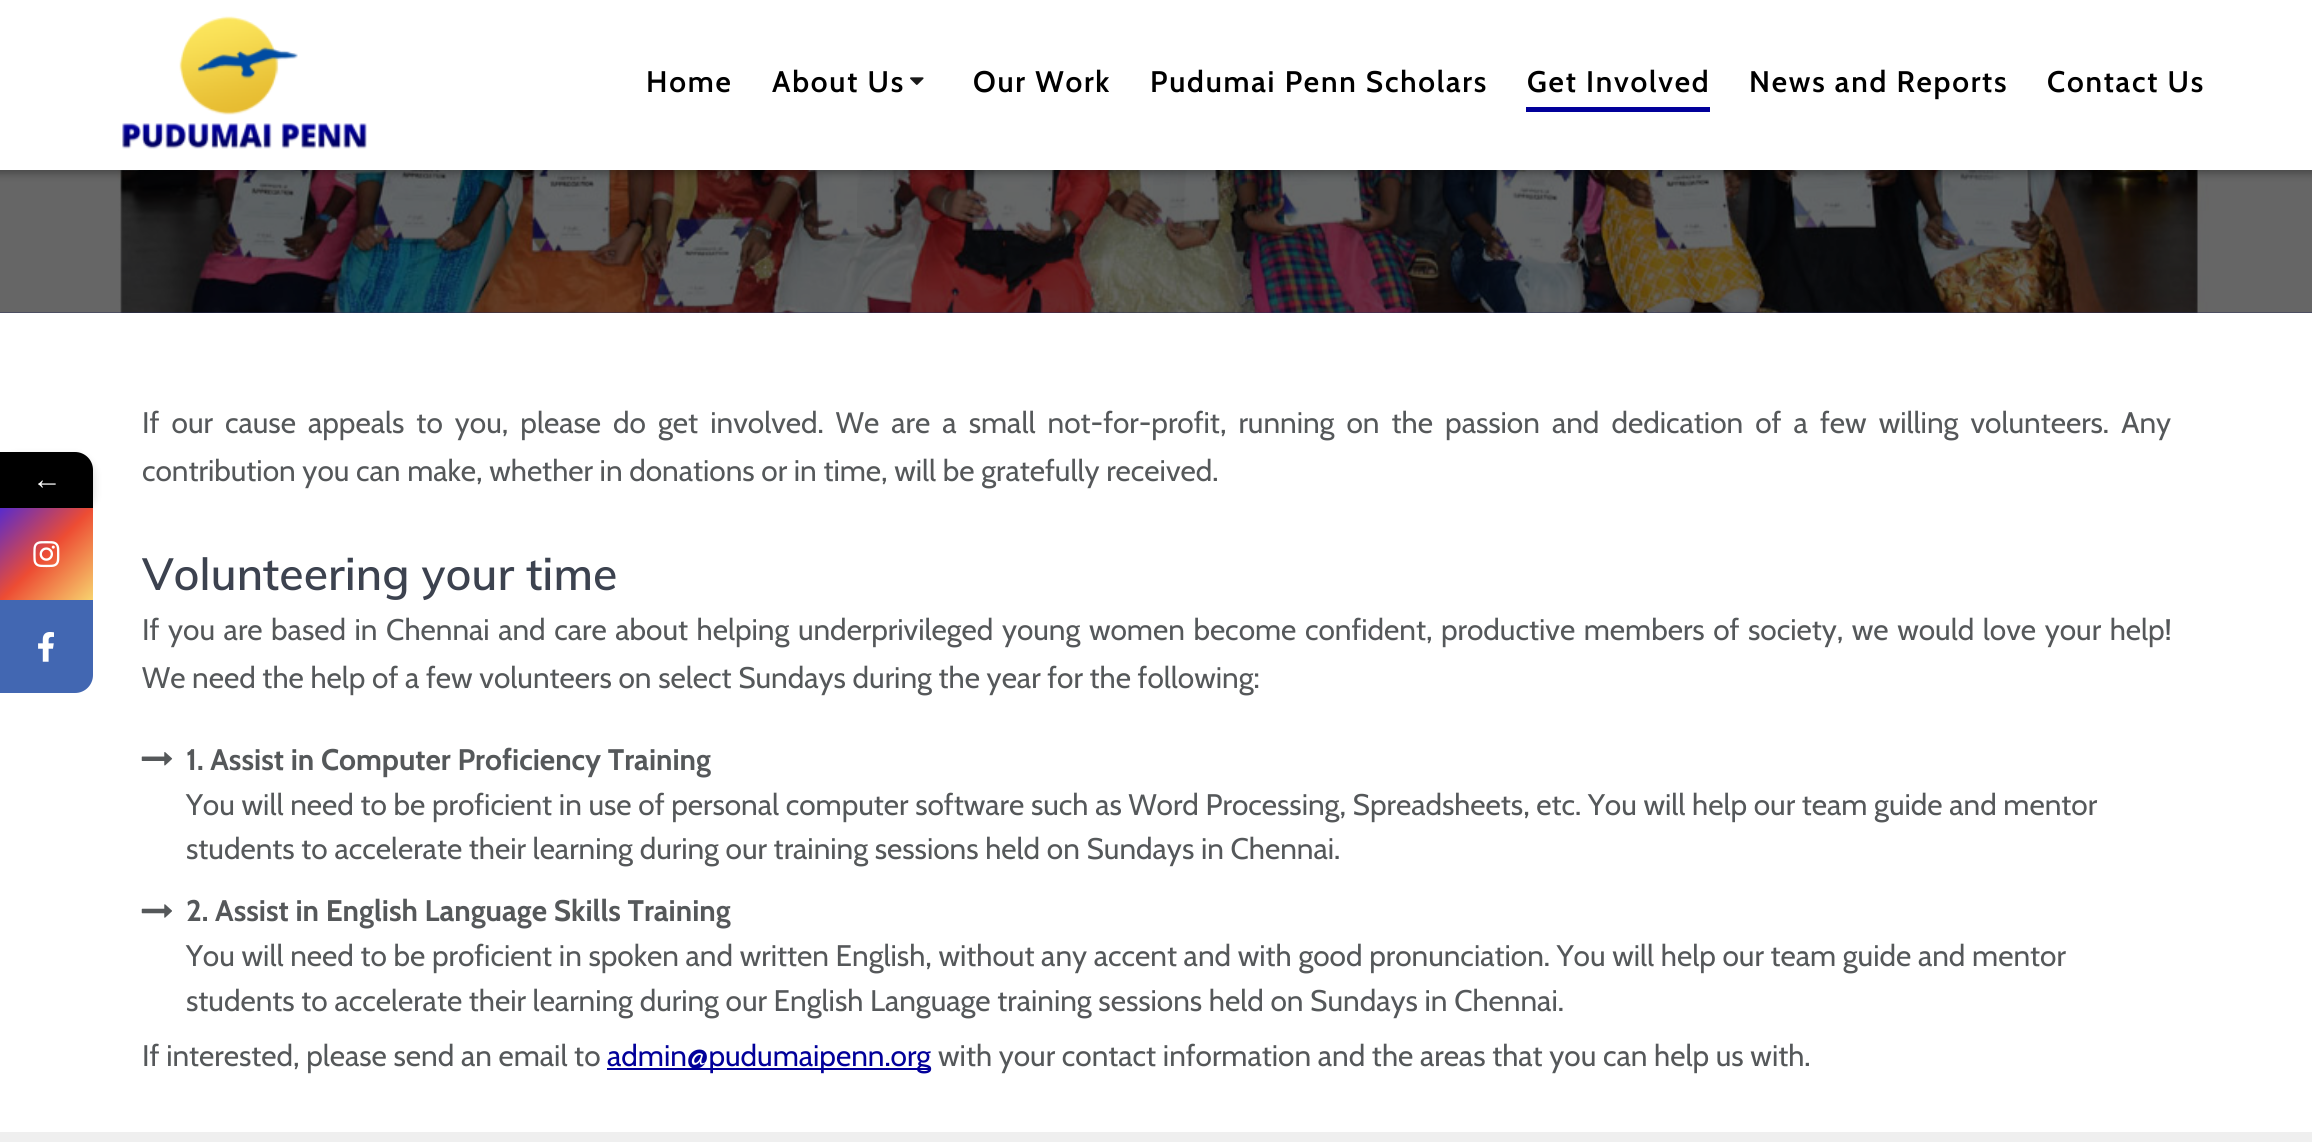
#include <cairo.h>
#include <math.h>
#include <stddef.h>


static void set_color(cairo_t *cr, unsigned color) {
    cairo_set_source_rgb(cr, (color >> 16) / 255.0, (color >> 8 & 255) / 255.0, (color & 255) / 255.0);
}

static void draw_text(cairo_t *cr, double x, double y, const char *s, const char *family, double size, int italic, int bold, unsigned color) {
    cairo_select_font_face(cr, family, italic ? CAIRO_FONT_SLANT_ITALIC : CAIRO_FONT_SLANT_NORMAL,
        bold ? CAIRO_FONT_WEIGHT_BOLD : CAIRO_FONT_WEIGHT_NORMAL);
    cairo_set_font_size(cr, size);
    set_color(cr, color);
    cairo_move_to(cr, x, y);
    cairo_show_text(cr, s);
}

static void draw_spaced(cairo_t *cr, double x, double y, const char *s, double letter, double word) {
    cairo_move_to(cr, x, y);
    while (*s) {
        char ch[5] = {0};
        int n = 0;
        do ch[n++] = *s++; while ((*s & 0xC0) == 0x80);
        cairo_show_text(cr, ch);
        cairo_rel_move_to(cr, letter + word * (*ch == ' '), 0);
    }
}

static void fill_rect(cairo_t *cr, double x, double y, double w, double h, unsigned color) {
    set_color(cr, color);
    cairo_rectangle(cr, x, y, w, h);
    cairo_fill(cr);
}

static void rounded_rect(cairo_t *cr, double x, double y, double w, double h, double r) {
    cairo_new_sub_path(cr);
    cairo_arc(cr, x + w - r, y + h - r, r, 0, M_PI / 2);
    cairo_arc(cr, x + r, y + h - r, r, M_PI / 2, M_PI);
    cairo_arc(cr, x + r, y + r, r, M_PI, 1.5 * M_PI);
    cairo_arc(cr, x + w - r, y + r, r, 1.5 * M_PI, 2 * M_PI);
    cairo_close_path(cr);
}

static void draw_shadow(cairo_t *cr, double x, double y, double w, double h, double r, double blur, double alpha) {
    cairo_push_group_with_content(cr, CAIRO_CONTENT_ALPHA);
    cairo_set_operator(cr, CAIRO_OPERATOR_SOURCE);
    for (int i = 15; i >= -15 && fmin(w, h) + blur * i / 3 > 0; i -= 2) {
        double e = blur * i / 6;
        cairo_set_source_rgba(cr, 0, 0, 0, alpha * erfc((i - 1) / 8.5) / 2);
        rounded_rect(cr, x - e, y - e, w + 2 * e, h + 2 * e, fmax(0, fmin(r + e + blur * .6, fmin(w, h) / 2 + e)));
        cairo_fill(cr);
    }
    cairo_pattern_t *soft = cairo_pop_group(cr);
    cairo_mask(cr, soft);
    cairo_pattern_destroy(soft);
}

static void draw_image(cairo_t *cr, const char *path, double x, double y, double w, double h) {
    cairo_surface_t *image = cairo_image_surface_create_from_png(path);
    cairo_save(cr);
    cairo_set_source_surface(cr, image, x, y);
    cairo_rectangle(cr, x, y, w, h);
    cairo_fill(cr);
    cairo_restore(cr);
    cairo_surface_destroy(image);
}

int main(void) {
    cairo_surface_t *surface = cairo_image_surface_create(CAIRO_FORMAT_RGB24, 2312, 1142);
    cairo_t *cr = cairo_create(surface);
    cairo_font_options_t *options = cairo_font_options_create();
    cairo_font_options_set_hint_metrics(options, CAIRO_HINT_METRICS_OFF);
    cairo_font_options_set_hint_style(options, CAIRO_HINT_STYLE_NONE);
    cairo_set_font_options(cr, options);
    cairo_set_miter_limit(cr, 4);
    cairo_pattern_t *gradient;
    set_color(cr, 0xFFFFFF);
    cairo_paint(cr);
    fill_rect(cr, 0, 312, 2312, 1, 0x2A2E57);
    draw_image(cr, "assets/img5.png", 0, 170, 2312, 143);
    draw_image(cr, "assets/img6.png", 857, 170, 330, 58);
    set_color(cr, 0x000000);
    draw_shadow(cr, -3, -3, 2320, 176, 0, 4.5, 0.33);
    fill_rect(cr, 0, 0, 2312, 170, 0xFFFFFF);
    draw_image(cr, "assets/img1.png", 122, 16, 245, 133);
    cairo_select_font_face(cr, "Cabin SemiBold", CAIRO_FONT_SLANT_NORMAL, CAIRO_FONT_WEIGHT_NORMAL);
    cairo_set_font_size(cr, 29.75);
    set_color(cr, 0x000000);
    draw_spaced(cr, 646, 92, "Home", 1.75, 0);
    draw_spaced(cr, 772, 92, "About Us", 1.75, 0);
    draw_image(cr, "assets/img2.png", 910, 77, 14, 8);
    draw_spaced(cr, 973, 92, "Our Work", 1.75, 0);
    draw_spaced(cr, 1150, 92, "Pudumai Penn Scholars", 1.75, 0);
    fill_rect(cr, 1526, 107, 184, 5, 0x01009A);
    set_color(cr, 0x000000);
    draw_spaced(cr, 1527, 92, "Get Involved", 1.75, 0);
    draw_spaced(cr, 1749, 92, "News and Reports", 1.75, 0);
    draw_spaced(cr, 2047, 92, "Contact Us", 1.75, 0);
    set_color(cr, 0x000000);
    draw_shadow(cr, 0, 457, 93, 56, 18, 5, 0.16);
    set_color(cr, 0x000000);
    cairo_new_path(cr);
    cairo_move_to(cr, 0, 452);
    cairo_line_to(cr, 75, 452);
    cairo_curve_to(cr, 85, 452, 93, 460, 93, 470);
    cairo_line_to(cr, 93, 508);
    cairo_line_to(cr, 0, 508);
    cairo_close_path(cr);
    cairo_fill(cr);
    draw_text(cr, 32, 489, "←", "Liberation Serif", 29.75, 0, 0, 0xFFFFFF);
    gradient = cairo_pattern_create_linear(0, 508, 93, 600);
    cairo_pattern_add_color_stop_rgba(gradient, 0, 0.345, 0.169, 0.804, 1);
    cairo_pattern_add_color_stop_rgba(gradient, 0.5, 0.929, 0.298, 0.2, 1);
    cairo_pattern_add_color_stop_rgba(gradient, 1, 0.969, 0.827, 0.435, 1);
    cairo_set_source(cr, gradient);
    cairo_pattern_destroy(gradient);
    cairo_rectangle(cr, 0, 508, 93, 92);
    cairo_fill(cr);
    draw_image(cr, "assets/img3.png", 33, 541, 27, 27);
    set_color(cr, 0x4267B2);
    cairo_new_path(cr);
    cairo_move_to(cr, 0, 600);
    cairo_line_to(cr, 93, 600);
    cairo_line_to(cr, 93, 675);
    cairo_curve_to(cr, 93, 685, 85, 693, 75, 693);
    cairo_line_to(cr, 0, 693);
    cairo_close_path(cr);
    cairo_fill(cr);
    draw_image(cr, "assets/img4.png", 38, 632, 16, 30);
    cairo_select_font_face(cr, "Cabin", CAIRO_FONT_SLANT_NORMAL, CAIRO_FONT_WEIGHT_NORMAL);
    set_color(cr, 0x55585A);
    draw_spaced(cr, 142, 433, "If our cause appeals to you, please do get involved. We are a small not-for-profit, running on the passion and dedication of a few willing volunteers. Any", 0, 5.4);
    draw_text(cr, 142, 481, "contribution you can make, whether in donations or in time, will be gratefully received.", "Cabin", 29.75, 0, 0, 0x55585A);
    draw_text(cr, 142, 590, "Volunteering your time", "Muli SemiBold", 44.6, 0, 0, 0x3C424F);
    cairo_select_font_face(cr, "Cabin", CAIRO_FONT_SLANT_NORMAL, CAIRO_FONT_WEIGHT_NORMAL);
    cairo_set_font_size(cr, 29.75);
    set_color(cr, 0x55585A);
    draw_spaced(cr, 142, 640, "If you are based in Chennai and care about helping underprivileged young women become confident, productive members of society, we would love your help!", 0, 1.9);
    draw_text(cr, 142, 688, "We need the help of a few volunteers on select Sundays during the year for the following:", "Cabin", 29.75, 0, 0, 0x55585A);
    draw_image(cr, "assets/img7.png", 141, 752, 32, 14);
    draw_text(cr, 186, 770, "1. Assist in Computer Proficiency Training", "Cabin", 29.75, 0, 1, 0x55585A);
    draw_text(cr, 186, 815, "You will need to be proficient in use of personal computer software such as Word Processing, Spreadsheets, etc. You will help our team guide and mentor", "Cabin", 29.75, 0, 0, 0x55585A);
    draw_text(cr, 186, 859, "students to accelerate their learning during our training sessions held on Sundays in Chennai.", "Cabin", 29.75, 0, 0, 0x55585A);
    draw_image(cr, "assets/img8.png", 141, 904, 31, 14);
    draw_text(cr, 186, 921, "2. Assist in English Language Skills Training", "Cabin", 29.75, 0, 1, 0x55585A);
    draw_text(cr, 186, 966, "You will need to be proficient in spoken and written English, without any accent and with good pronunciation. You will help our team guide and mentor", "Cabin", 29.75, 0, 0, 0x55585A);
    draw_text(cr, 186, 1011, "students to accelerate their learning during our English Language training sessions held on Sundays in Chennai.", "Cabin", 29.75, 0, 0, 0x55585A);
    draw_text(cr, 142, 1066, "If interested, please send an email to", "Cabin", 29.75, 0, 0, 0x55585A);
    fill_rect(cr, 607, 1068, 324, 2, 0x01009A);
    draw_text(cr, 607, 1066, "admin@pudumaipenn.org", "Cabin", 29.75, 0, 0, 0x01009A);
    draw_text(cr, 938, 1066, "with your contact information and the areas that you can help us with.", "Cabin", 29.75, 0, 0, 0x55585A);
    fill_rect(cr, 0, 1132, 2312, 10, 0xEFEFEF);
    cairo_surface_write_to_png(surface, "output.png");
    cairo_font_options_destroy(options);
    cairo_destroy(cr);
    cairo_surface_destroy(surface);
    return 0;
}
